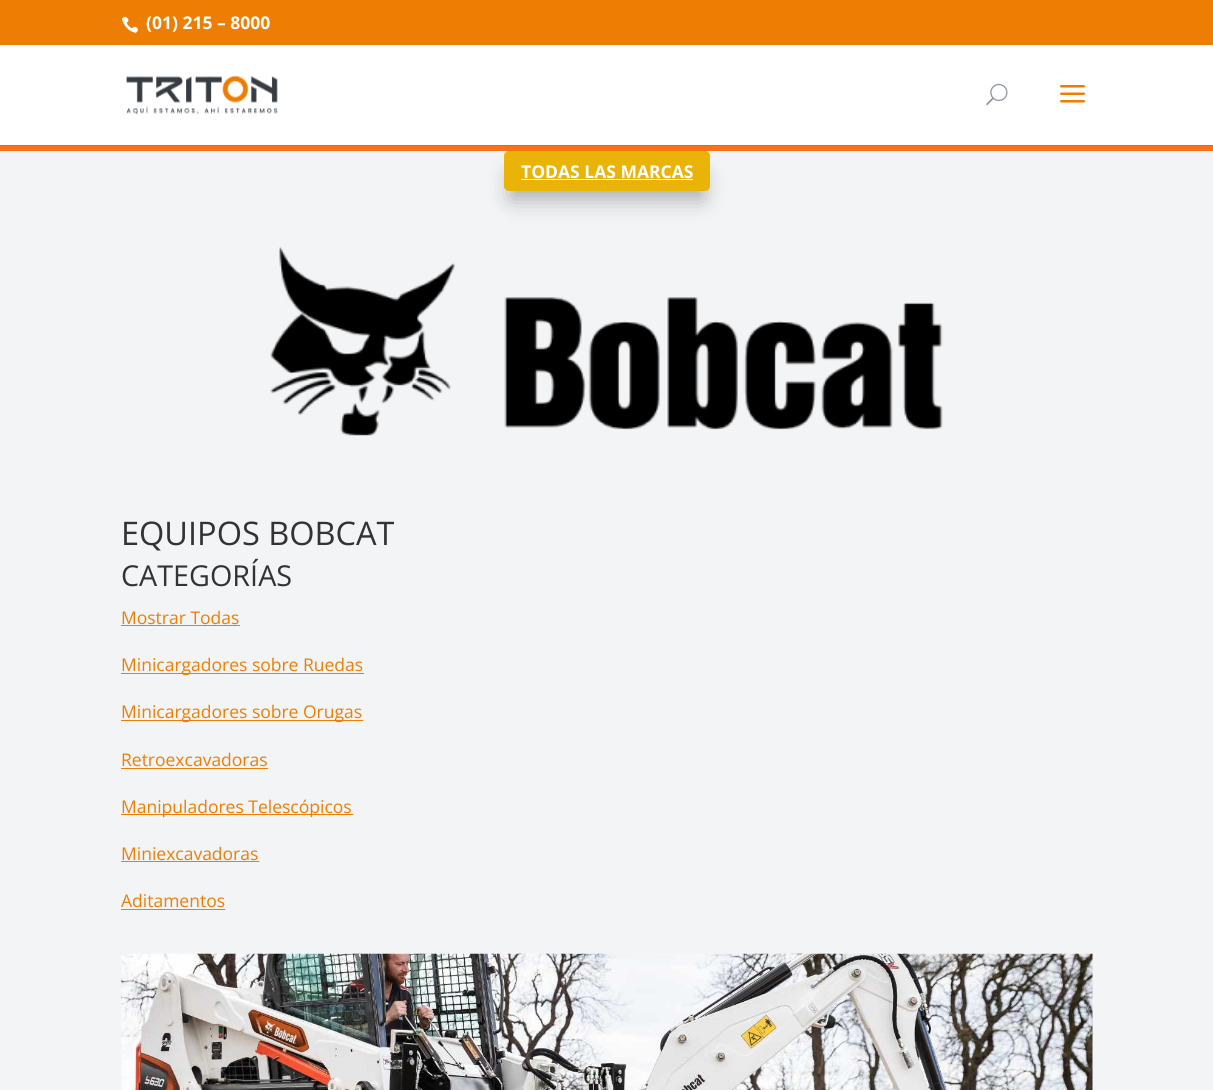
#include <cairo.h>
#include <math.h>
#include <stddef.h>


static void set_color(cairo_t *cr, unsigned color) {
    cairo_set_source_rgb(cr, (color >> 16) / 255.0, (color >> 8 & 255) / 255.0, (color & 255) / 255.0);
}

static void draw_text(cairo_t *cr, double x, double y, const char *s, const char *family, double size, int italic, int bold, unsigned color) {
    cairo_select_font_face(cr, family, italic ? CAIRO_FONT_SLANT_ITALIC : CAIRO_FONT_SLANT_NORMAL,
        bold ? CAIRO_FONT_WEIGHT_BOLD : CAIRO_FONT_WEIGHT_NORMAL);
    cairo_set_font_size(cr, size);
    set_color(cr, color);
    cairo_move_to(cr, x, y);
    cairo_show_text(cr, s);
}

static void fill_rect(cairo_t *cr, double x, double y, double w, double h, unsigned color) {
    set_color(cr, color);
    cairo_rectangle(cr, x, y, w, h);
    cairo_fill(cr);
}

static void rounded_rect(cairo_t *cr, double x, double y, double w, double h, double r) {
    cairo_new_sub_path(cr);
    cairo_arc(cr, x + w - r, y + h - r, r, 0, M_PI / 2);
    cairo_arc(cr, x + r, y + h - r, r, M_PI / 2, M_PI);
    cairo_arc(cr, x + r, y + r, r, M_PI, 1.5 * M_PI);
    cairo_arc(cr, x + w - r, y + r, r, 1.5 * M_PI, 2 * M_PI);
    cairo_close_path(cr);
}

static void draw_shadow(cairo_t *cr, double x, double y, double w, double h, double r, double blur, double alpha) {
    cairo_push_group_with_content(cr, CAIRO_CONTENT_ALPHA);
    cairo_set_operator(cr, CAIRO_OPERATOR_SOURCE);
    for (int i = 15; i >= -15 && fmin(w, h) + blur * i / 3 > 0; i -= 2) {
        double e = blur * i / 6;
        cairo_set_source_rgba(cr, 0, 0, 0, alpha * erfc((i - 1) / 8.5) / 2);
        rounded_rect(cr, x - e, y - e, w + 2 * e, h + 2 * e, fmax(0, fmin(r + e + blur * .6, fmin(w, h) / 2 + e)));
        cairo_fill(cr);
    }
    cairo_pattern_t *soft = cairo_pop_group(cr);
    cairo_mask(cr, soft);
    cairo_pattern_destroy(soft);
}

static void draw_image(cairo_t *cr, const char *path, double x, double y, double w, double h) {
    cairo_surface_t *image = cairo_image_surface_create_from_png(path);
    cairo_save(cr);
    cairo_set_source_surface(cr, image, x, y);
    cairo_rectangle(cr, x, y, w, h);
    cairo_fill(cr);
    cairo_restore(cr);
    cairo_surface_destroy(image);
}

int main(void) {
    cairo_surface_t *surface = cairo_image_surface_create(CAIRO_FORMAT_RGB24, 1213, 1090);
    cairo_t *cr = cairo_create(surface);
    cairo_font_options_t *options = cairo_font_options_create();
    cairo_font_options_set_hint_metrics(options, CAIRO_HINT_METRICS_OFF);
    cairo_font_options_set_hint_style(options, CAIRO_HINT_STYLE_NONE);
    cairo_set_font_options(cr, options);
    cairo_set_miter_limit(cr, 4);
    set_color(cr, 0xF3F4F6);
    cairo_paint(cr);
    fill_rect(cr, 0, 0, 1213, 45, 0xED7E03);
    draw_image(cr, "assets/img1.png", 122, 16, 16, 17);
    draw_text(cr, 146, 29, "(01) 215 – 8000", "Open Sans", 17.5, 0, 1, 0xFFFFFF);
    fill_rect(cr, 0, 146, 1213, 5, 0xF97316);
    set_color(cr, 0x000000);
    draw_shadow(cr, 511, 174, 192, 25, 0, 11, 0.3);
    set_color(cr, 0xE06714);
    cairo_new_path(cr);
    cairo_move_to(cr, 0, 145);
    cairo_line_to(cr, 0, 146);
    cairo_line_to(cr, 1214, 146);
    cairo_line_to(cr, 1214, 46);
    cairo_line_to(cr, 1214, 145);
    cairo_close_path(cr);
    cairo_fill(cr);
    fill_rect(cr, 0, 45, 1213, 100, 0xFFFFFF);
    draw_image(cr, "assets/img2.png", 126, 75, 152, 40);
    draw_image(cr, "assets/img3.png", 986, 83, 22, 23);
    draw_image(cr, "assets/img4.png", 1060, 85, 25, 18);
    set_color(cr, 0xEAB308);
    rounded_rect(cr, 504, 151, 206, 40, 5);
    cairo_fill(cr);
    draw_text(cr, 521, 178, "TODAS LAS MARCAS", "Open Sans", 17.5, 0, 1, 0xFFFFFF);
    fill_rect(cr, 521, 179, 172, 1, 0xFFFFFF);
    draw_image(cr, "assets/img5.png", 270, 247, 673, 189);
    draw_text(cr, 121, 545, "EQUIPOS BOBCAT", "Open Sans", 32.5, 0, 0, 0x333333);
    draw_text(cr, 121, 586, "CATEGORÍAS", "Open Sans", 28.75, 0, 0, 0x333333);
    draw_text(cr, 121, 624, "Mostrar Todas", "Open Sans", 17.5, 0, 0, 0xED7E03);
    fill_rect(cr, 121, 625, 119, 1, 0xED7E03);
    fill_rect(cr, 121, 673, 243, 1, 0xED7E03);
    draw_text(cr, 121, 671, "Minicargadores sobre Ruedas", "Open Sans", 17.5, 0, 0, 0xED7E03);
    fill_rect(cr, 121, 720, 242, 1, 0xED7E03);
    draw_text(cr, 121, 718, "Minicargadores sobre Orugas", "Open Sans", 17.5, 0, 0, 0xED7E03);
    draw_text(cr, 121, 766, "Retroexcavadoras", "Open Sans", 17.5, 0, 0, 0xED7E03);
    fill_rect(cr, 121, 768, 147, 1, 0xED7E03);
    fill_rect(cr, 121, 814, 232, 1, 0xED7E03);
    draw_text(cr, 121, 813, "Manipuladores Telescópicos", "Open Sans", 17.5, 0, 0, 0xED7E03);
    draw_text(cr, 121, 860, "Miniexcavadoras", "Open Sans", 17.5, 0, 0, 0xED7E03);
    fill_rect(cr, 121, 861, 138, 1, 0xED7E03);
    draw_text(cr, 121, 907, "Aditamentos", "Open Sans", 17.5, 0, 0, 0xED7E03);
    fill_rect(cr, 121, 909, 104, 1, 0xED7E03);
    draw_image(cr, "assets/img6.png", 121, 953, 972, 137);
    cairo_surface_write_to_png(surface, "output.png");
    cairo_font_options_destroy(options);
    cairo_destroy(cr);
    cairo_surface_destroy(surface);
    return 0;
}
